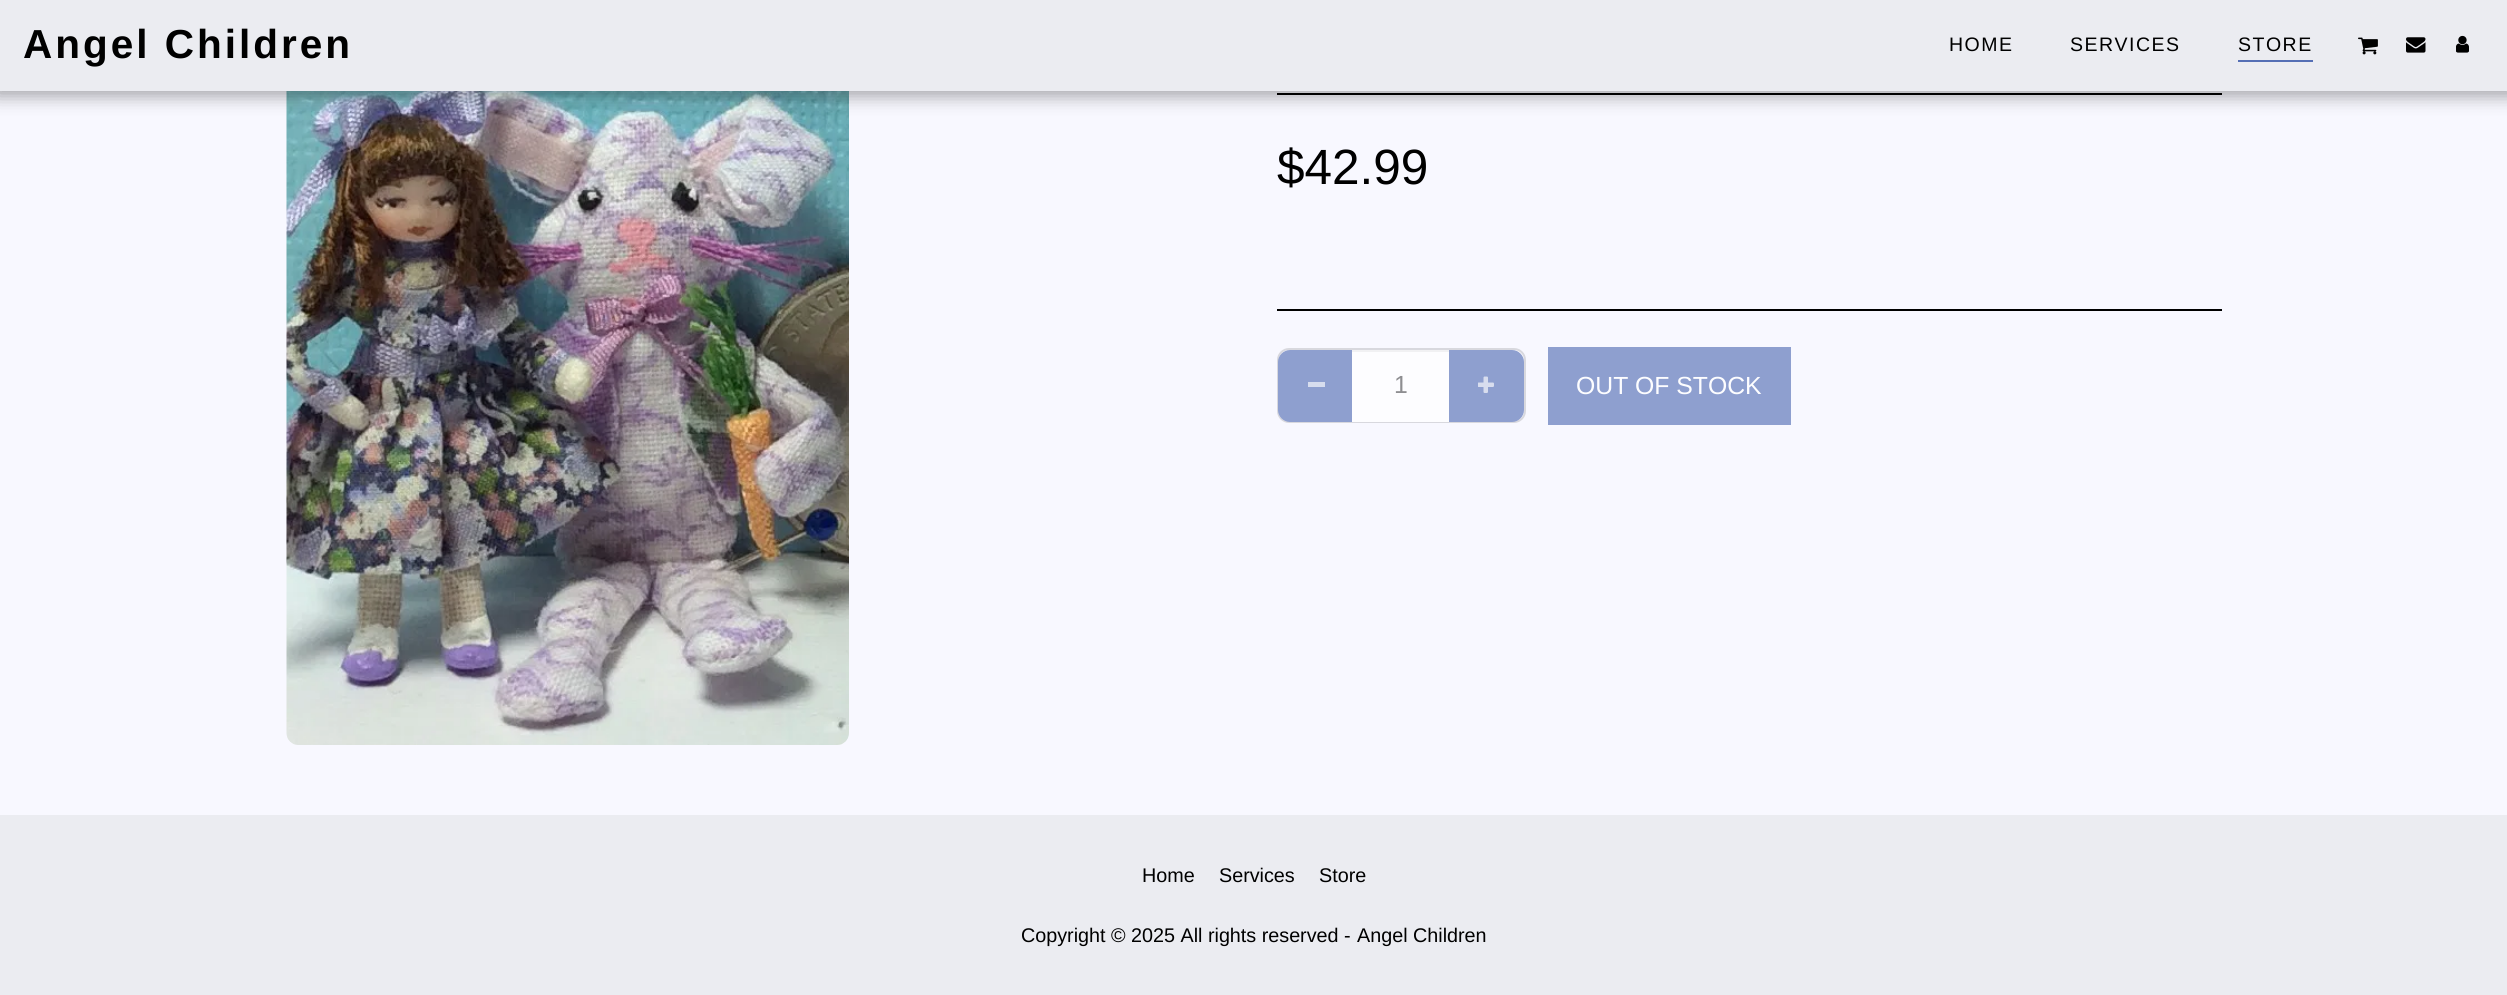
#include <cairo.h>
#include <math.h>
#include <stddef.h>


static void set_color(cairo_t *cr, unsigned color) {
    cairo_set_source_rgb(cr, (color >> 16) / 255.0, (color >> 8 & 255) / 255.0, (color & 255) / 255.0);
}

static void draw_text(cairo_t *cr, double x, double y, const char *s, const char *family, double size, int italic, int bold, unsigned color) {
    cairo_select_font_face(cr, family, italic ? CAIRO_FONT_SLANT_ITALIC : CAIRO_FONT_SLANT_NORMAL,
        bold ? CAIRO_FONT_WEIGHT_BOLD : CAIRO_FONT_WEIGHT_NORMAL);
    cairo_set_font_size(cr, size);
    set_color(cr, color);
    cairo_move_to(cr, x, y);
    cairo_show_text(cr, s);
}

static void draw_spaced(cairo_t *cr, double x, double y, const char *s, double letter, double word) {
    cairo_move_to(cr, x, y);
    while (*s) {
        char ch[5] = {0};
        int n = 0;
        do ch[n++] = *s++; while ((*s & 0xC0) == 0x80);
        cairo_show_text(cr, ch);
        cairo_rel_move_to(cr, letter + word * (*ch == ' '), 0);
    }
}

static void fill_rect(cairo_t *cr, double x, double y, double w, double h, unsigned color) {
    set_color(cr, color);
    cairo_rectangle(cr, x, y, w, h);
    cairo_fill(cr);
}

static void rounded_rect(cairo_t *cr, double x, double y, double w, double h, double r) {
    cairo_new_sub_path(cr);
    cairo_arc(cr, x + w - r, y + h - r, r, 0, M_PI / 2);
    cairo_arc(cr, x + r, y + h - r, r, M_PI / 2, M_PI);
    cairo_arc(cr, x + r, y + r, r, M_PI, 1.5 * M_PI);
    cairo_arc(cr, x + w - r, y + r, r, 1.5 * M_PI, 2 * M_PI);
    cairo_close_path(cr);
}

static void draw_shadow(cairo_t *cr, double x, double y, double w, double h, double r, double blur, double alpha) {
    cairo_push_group_with_content(cr, CAIRO_CONTENT_ALPHA);
    cairo_set_operator(cr, CAIRO_OPERATOR_SOURCE);
    for (int i = 15; i >= -15 && fmin(w, h) + blur * i / 3 > 0; i -= 2) {
        double e = blur * i / 6;
        cairo_set_source_rgba(cr, 0, 0, 0, alpha * erfc((i - 1) / 8.5) / 2);
        rounded_rect(cr, x - e, y - e, w + 2 * e, h + 2 * e, fmax(0, fmin(r + e + blur * .6, fmin(w, h) / 2 + e)));
        cairo_fill(cr);
    }
    cairo_pattern_t *soft = cairo_pop_group(cr);
    cairo_mask(cr, soft);
    cairo_pattern_destroy(soft);
}

static void draw_image(cairo_t *cr, const char *path, double x, double y, double w, double h) {
    cairo_surface_t *image = cairo_image_surface_create_from_png(path);
    cairo_save(cr);
    cairo_set_source_surface(cr, image, x, y);
    cairo_rectangle(cr, x, y, w, h);
    cairo_fill(cr);
    cairo_restore(cr);
    cairo_surface_destroy(image);
}

int main(void) {
    cairo_surface_t *surface = cairo_image_surface_create(CAIRO_FORMAT_RGB24, 2507, 995);
    cairo_t *cr = cairo_create(surface);
    cairo_font_options_t *options = cairo_font_options_create();
    cairo_font_options_set_hint_metrics(options, CAIRO_HINT_METRICS_OFF);
    cairo_font_options_set_hint_style(options, CAIRO_HINT_STYLE_NONE);
    cairo_set_font_options(cr, options);
    cairo_set_miter_limit(cr, 4);
    set_color(cr, 0xF8F8FF);
    cairo_paint(cr);
    draw_image(cr, "assets/img4.png", 286, 91, 563, 654);
    fill_rect(cr, 1277, 93, 945, 2, 0x000000);
    set_color(cr, 0x000000);
    draw_shadow(cr, -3, 0, 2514, 96, 0, 9, 0.35);
    fill_rect(cr, 0, 0, 2507, 91, 0xEBECF1);
    cairo_select_font_face(cr, "Arimo", CAIRO_FONT_SLANT_NORMAL, CAIRO_FONT_WEIGHT_BOLD);
    cairo_set_font_size(cr, 40.5);
    set_color(cr, 0x000000);
    draw_spaced(cr, 23, 58, "Angel Children", 3, 0);
    cairo_select_font_face(cr, "Arimo", CAIRO_FONT_SLANT_NORMAL, CAIRO_FONT_WEIGHT_NORMAL);
    cairo_set_font_size(cr, 19.5);
    draw_spaced(cr, 1949, 51, "HOME", 1.5, 0);
    draw_spaced(cr, 2070, 51, "SERVICES", 1.5, 0);
    draw_spaced(cr, 2238, 51, "STORE", 1.5, 0);
    fill_rect(cr, 2238, 60, 75, 2, 0x556FB5);
    draw_image(cr, "assets/img1.png", 2358, 37, 20, 18);
    draw_image(cr, "assets/img2.png", 2406, 37, 20, 16);
    draw_image(cr, "assets/img3.png", 2456, 35, 13, 18);
    draw_text(cr, 1277, 184, "$42.99", "Arimo", 49.5, 0, 0, 0x000000);
    fill_rect(cr, 1277, 309, 945, 2, 0x000000);
    rounded_rect(cr, 1278, 349, 247, 73, 11);
    set_color(cr, 0xD8D8DE);
    cairo_stroke(cr);
    set_color(cr, 0x8E9FCF);
    cairo_new_path(cr);
    cairo_move_to(cr, 1290, 350);
    cairo_line_to(cr, 1353, 350);
    cairo_line_to(cr, 1353, 422);
    cairo_line_to(cr, 1290, 422);
    cairo_curve_to(cr, 1283.5, 422, 1278, 416.5, 1278, 410);
    cairo_line_to(cr, 1278, 362);
    cairo_curve_to(cr, 1278, 355.5, 1283.5, 350, 1290, 350);
    cairo_close_path(cr);
    cairo_fill(cr);
    fill_rect(cr, 1308, 382, 17, 5, 0xD7DDEE);
    set_color(cr, 0x8E9FCF);
    cairo_new_path(cr);
    cairo_move_to(cr, 1448, 350);
    cairo_line_to(cr, 1512, 350);
    cairo_curve_to(cr, 1518.5, 350, 1524, 355.5, 1524, 362);
    cairo_line_to(cr, 1524, 410);
    cairo_curve_to(cr, 1524, 416.5, 1518.5, 422, 1512, 422);
    cairo_line_to(cr, 1448, 422);
    cairo_close_path(cr);
    cairo_fill(cr);
    fill_rect(cr, 1352, 352, 97, 70, 0xFDFDFF);
    fill_rect(cr, 1352, 350, 97, 2, 0xF1F1F3);
    draw_text(cr, 1394, 393, "1", "Arimo", 24.75, 0, 0, 0x8E8E91);
    draw_image(cr, "assets/img5.png", 1478, 376, 16, 17);
    fill_rect(cr, 1548, 347, 243, 78, 0x8E9FCF);
    draw_text(cr, 1576, 394, "OUT OF STOCK", "Arimo", 24.75, 0, 0, 0xFDFDFF);
    fill_rect(cr, 0, 815, 2507, 180, 0xEBECF1);
    draw_text(cr, 1142, 882, "Home", "Arimo", 19.75, 0, 0, 0x000000);
    draw_text(cr, 1219, 882, "Services", "Arimo", 19.75, 0, 0, 0x000000);
    draw_text(cr, 1319, 882, "Store", "Arimo", 19.75, 0, 0, 0x000000);
    draw_text(cr, 1021, 942, "Copyright © 2025 All rights reserved -", "Arimo", 19.75, 0, 0, 0x000000);
    draw_text(cr, 1357, 942, "Angel Children", "Arimo", 19.75, 0, 0, 0x000000);
    cairo_surface_write_to_png(surface, "output.png");
    cairo_font_options_destroy(options);
    cairo_destroy(cr);
    cairo_surface_destroy(surface);
    return 0;
}
